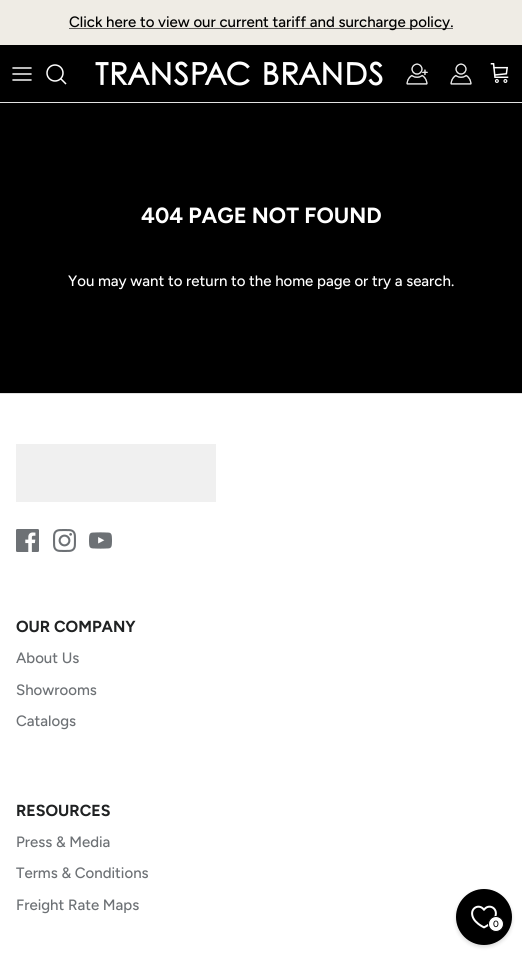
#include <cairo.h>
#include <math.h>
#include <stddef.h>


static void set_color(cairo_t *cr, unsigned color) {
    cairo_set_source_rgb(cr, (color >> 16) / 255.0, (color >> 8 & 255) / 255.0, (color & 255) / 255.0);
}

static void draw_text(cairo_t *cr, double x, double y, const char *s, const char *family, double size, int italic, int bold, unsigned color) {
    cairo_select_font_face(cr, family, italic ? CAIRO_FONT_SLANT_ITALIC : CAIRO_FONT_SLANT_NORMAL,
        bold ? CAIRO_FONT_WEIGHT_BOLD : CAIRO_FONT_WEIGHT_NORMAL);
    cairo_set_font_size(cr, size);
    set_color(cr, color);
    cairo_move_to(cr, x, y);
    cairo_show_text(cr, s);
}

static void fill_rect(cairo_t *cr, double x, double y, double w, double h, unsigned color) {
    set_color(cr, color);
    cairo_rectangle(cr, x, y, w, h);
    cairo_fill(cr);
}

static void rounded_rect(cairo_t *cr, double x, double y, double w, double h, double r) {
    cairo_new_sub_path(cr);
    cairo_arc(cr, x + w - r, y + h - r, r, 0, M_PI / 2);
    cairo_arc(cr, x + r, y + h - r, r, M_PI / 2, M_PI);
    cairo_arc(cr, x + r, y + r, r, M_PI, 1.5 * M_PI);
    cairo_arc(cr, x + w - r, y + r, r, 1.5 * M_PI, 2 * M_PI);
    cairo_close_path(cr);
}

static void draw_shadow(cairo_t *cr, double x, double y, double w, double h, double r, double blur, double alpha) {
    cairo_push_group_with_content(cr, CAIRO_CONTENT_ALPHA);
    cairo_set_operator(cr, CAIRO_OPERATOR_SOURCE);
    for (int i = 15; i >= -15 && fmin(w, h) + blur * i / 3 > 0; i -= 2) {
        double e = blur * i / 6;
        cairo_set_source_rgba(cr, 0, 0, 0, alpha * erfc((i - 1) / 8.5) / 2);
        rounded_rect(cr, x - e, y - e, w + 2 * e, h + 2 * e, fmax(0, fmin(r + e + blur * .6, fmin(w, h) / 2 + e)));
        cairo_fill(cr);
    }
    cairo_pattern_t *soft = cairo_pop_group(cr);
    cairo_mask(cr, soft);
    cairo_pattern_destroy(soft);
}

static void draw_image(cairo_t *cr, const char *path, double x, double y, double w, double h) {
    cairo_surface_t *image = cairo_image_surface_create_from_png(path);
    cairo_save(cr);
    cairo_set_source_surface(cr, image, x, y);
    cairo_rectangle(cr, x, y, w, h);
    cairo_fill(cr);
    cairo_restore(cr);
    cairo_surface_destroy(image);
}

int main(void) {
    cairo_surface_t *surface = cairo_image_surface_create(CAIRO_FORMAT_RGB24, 522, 965);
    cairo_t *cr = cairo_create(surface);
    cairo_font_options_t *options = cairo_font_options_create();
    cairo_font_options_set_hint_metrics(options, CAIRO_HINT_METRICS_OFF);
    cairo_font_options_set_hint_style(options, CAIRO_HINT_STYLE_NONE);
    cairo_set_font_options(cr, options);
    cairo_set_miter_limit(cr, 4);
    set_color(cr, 0x000000);
    cairo_paint(cr);
    fill_rect(cr, 0, 0, 522, 45, 0xEFECE5);
    fill_rect(cr, 69, 28, 384, 1, 0x605E5C);
    draw_text(cr, 69, 27, "Click here to view our current tariff and surcharge policy.", "Figtree Medium", 15, 0, 0, 0x000000);
    fill_rect(cr, 0, 102, 522, 1, 0xE2E2E2);
    draw_image(cr, "assets/img1.png", 12, 67, 20, 14);
    cairo_arc(cr, 55, 73, 8, 0, 2 * M_PI);
    set_color(cr, 0xFFFFFF);
    cairo_set_line_width(cr, 1.5);
    cairo_stroke(cr);
    cairo_new_path(cr);
    cairo_move_to(cr, 61, 79);
    cairo_line_to(cr, 65.5, 83.5);
    cairo_set_line_cap(cr, CAIRO_LINE_CAP_SQUARE);
    cairo_stroke(cr);
    draw_image(cr, "assets/img2.png", 95, 61, 288, 25);
    draw_image(cr, "assets/img3.png", 406, 63, 22, 22);
    draw_image(cr, "assets/img4.png", 450, 63, 22, 22);
    draw_image(cr, "assets/img5.png", 490, 63, 19, 20);
    draw_text(cr, 141, 223, "404 PAGE NOT FOUND", "Figtree", 22, 0, 1, 0xFFFFFF);
    draw_text(cr, 68, 286, "You may want to return to the home page or try a search.", "Figtree Medium", 15, 0, 0, 0xFFFFFF);
    fill_rect(cr, 0, 394, 522, 571, 0xFFFFFF);
    fill_rect(cr, 0, 393, 522, 1, 0xE0E0E0);
    fill_rect(cr, 16, 444, 200, 58, 0xF0F0F0);
    draw_image(cr, "assets/img6.png", 16, 529, 23, 23);
    draw_image(cr, "assets/img7.png", 53, 529, 23, 23);
    draw_image(cr, "assets/img8.png", 89, 532, 23, 17);
    draw_text(cr, 16, 632, "OUR COMPANY", "Figtree", 16, 0, 1, 0x202223);
    draw_text(cr, 16, 663, "About Us", "Figtree Medium", 15, 0, 0, 0x6D7175);
    draw_text(cr, 16, 695, "Showrooms", "Figtree Medium", 15, 0, 0, 0x6D7175);
    draw_text(cr, 16, 726, "Catalogs", "Figtree Medium", 15, 0, 0, 0x6D7175);
    draw_text(cr, 16, 816, "RESOURCES", "Figtree", 16, 0, 1, 0x202223);
    draw_text(cr, 16, 847, "Press & Media", "Figtree Medium", 15, 0, 0, 0x6D7175);
    draw_text(cr, 16, 878, "Terms & Conditions", "Figtree Medium", 15, 0, 0, 0x6D7175);
    draw_text(cr, 16, 910, "Freight Rate Maps", "Figtree Medium", 15, 0, 0, 0x6D7175);
    set_color(cr, 0x000000);
    draw_shadow(cr, 456, 891, 56, 56, 28, 2, 0.15);
    set_color(cr, 0x000000);
    cairo_arc(cr, 484, 917, 27, 0, 2 * M_PI);
    cairo_fill_preserve(cr);
    cairo_set_line_width(cr, 2);
    cairo_set_line_cap(cr, CAIRO_LINE_CAP_BUTT);
    cairo_stroke(cr);
    draw_image(cr, "assets/img9.png", 471, 905, 26, 24);
    set_color(cr, 0xFFFFFF);
    cairo_arc(cr, 496, 924, 7.5, 0, 2 * M_PI);
    cairo_fill_preserve(cr);
    set_color(cr, 0x000000);
    cairo_set_line_width(cr, 1);
    cairo_stroke(cr);
    draw_text(cr, 493, 927, "0", "Figtree Medium", 9, 0, 0, 0x000000);
    cairo_surface_write_to_png(surface, "output.png");
    cairo_font_options_destroy(options);
    cairo_destroy(cr);
    cairo_surface_destroy(surface);
    return 0;
}
